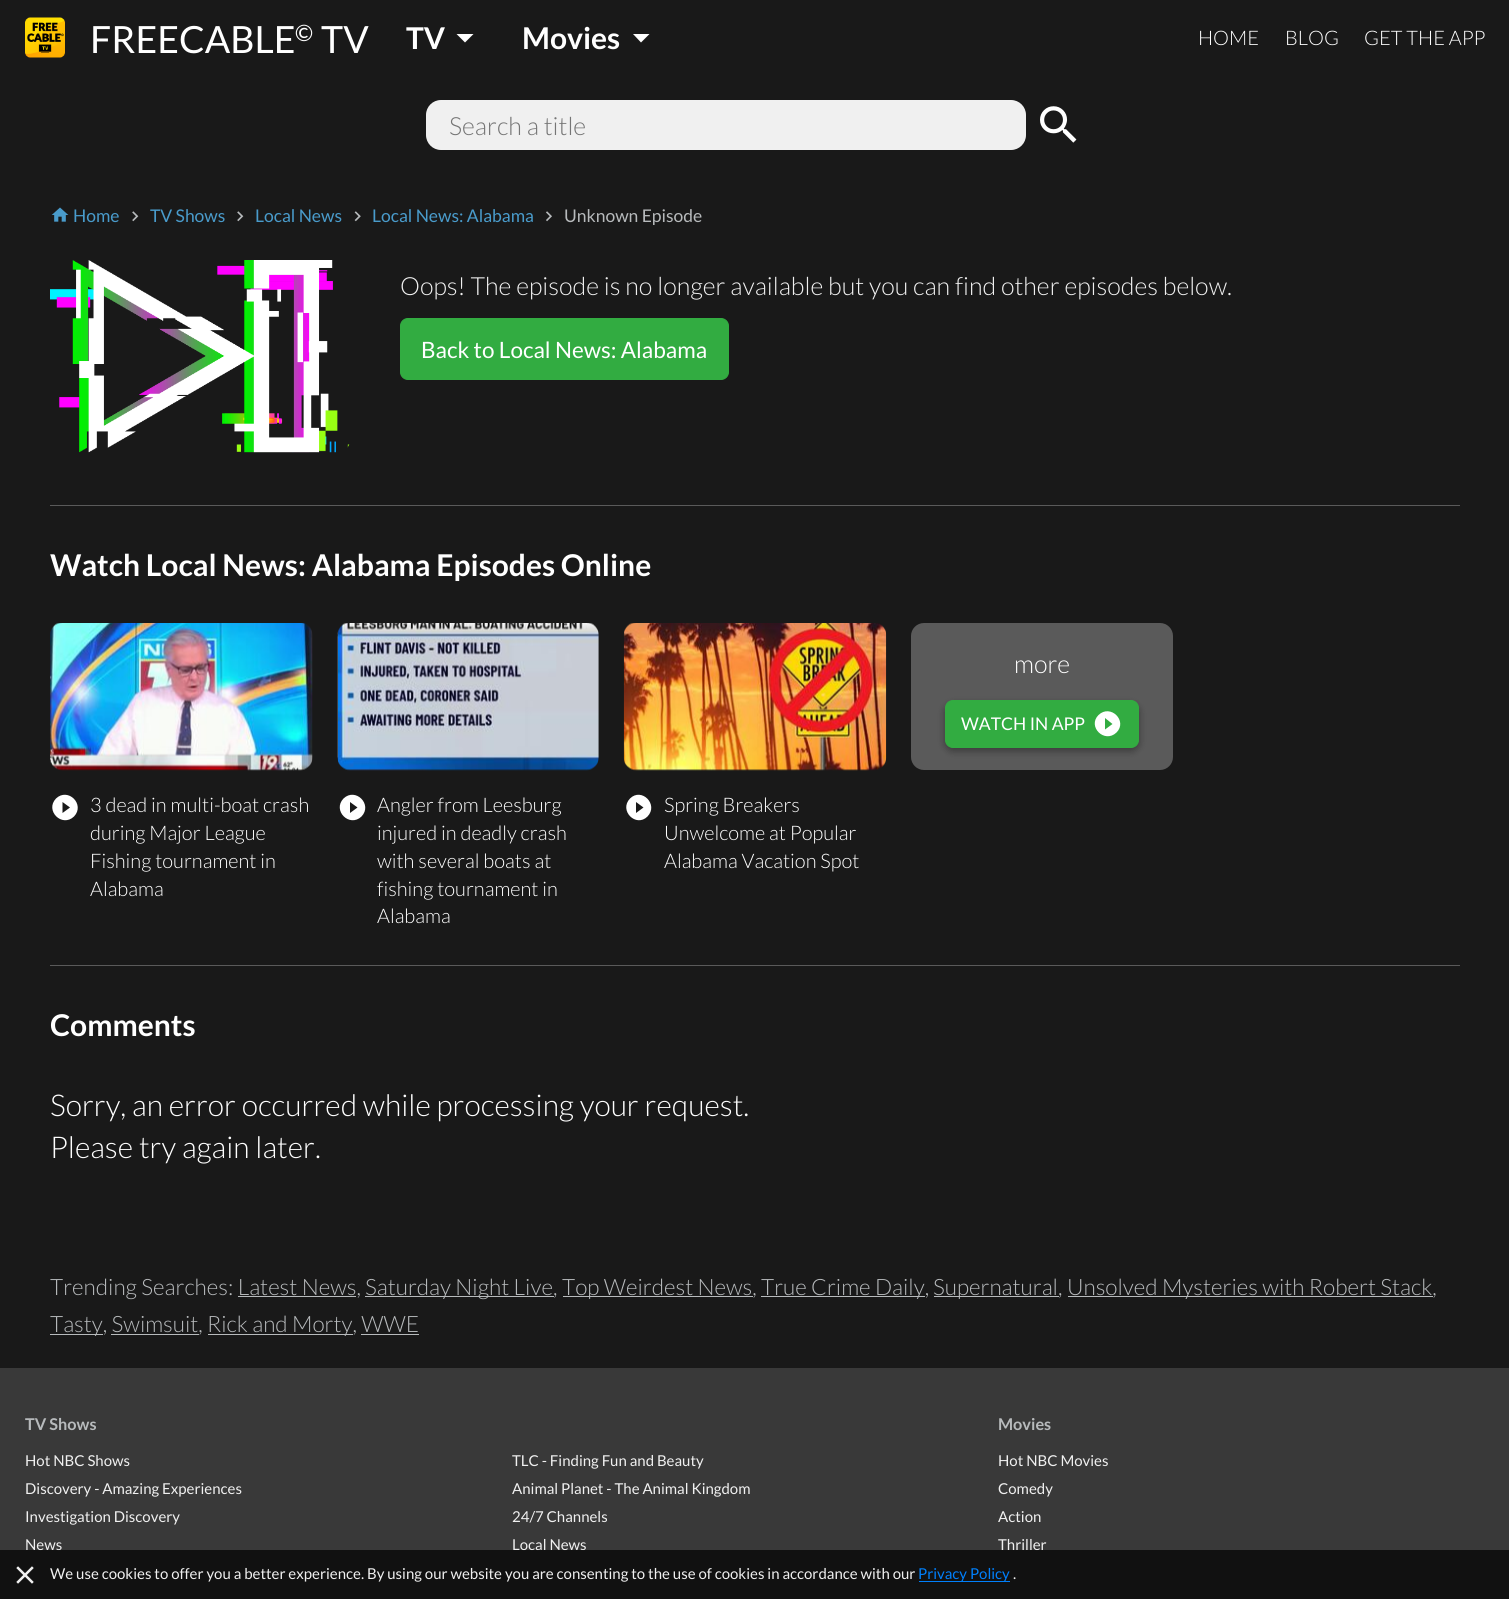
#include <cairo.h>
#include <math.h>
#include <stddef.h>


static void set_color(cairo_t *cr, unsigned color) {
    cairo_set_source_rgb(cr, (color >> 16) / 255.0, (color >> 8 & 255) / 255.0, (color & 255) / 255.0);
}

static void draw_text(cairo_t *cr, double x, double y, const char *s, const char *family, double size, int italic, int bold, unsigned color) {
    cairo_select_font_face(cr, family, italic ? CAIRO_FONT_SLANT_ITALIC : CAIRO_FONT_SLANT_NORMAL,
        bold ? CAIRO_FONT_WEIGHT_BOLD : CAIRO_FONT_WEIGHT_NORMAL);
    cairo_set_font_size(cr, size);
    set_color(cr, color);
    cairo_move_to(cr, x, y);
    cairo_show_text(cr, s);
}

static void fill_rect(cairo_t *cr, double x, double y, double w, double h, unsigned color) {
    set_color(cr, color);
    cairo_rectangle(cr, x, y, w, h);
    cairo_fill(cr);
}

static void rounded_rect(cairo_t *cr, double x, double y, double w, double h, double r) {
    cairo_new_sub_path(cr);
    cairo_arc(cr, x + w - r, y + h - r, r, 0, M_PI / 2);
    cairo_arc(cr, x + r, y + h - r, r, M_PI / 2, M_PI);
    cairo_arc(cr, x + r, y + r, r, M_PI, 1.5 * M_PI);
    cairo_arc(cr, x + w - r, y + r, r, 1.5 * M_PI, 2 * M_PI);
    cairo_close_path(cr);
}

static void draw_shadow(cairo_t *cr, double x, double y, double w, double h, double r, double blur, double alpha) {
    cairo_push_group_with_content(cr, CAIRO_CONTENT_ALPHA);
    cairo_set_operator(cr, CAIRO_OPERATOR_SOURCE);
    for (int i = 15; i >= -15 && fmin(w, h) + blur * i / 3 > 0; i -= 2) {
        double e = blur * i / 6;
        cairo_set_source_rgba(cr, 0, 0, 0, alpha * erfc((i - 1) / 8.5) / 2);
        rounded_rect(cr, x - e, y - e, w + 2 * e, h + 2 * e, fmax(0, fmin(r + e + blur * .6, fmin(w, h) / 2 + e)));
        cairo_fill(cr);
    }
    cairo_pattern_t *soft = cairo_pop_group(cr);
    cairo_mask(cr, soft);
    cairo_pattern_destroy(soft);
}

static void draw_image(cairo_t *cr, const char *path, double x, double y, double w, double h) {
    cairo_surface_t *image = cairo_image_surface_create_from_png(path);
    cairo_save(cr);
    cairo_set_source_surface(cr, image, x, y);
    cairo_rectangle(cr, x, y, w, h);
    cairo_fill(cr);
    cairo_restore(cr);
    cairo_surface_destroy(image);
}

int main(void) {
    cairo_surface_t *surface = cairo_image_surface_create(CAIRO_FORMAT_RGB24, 1509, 1599);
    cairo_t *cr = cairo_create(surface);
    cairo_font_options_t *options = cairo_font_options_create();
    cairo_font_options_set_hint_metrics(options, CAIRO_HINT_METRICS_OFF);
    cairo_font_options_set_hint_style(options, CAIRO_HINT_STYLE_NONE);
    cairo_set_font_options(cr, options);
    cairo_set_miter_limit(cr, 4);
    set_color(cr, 0x191919);
    cairo_paint(cr);
    draw_image(cr, "assets/img1.png", 25, 17, 40, 41);
    draw_text(cr, 90, 53, "FREECABLE", "Lato", 37.5, 0, 0, 0xFFFFFF);
    draw_text(cr, 295, 41, "©", "Lato", 22.5, 0, 0, 0xFFFFFF);
    draw_text(cr, 321, 53, "TV", "Lato", 37.5, 0, 0, 0xFFFFFF);
    draw_text(cr, 406, 49, "TV", "Lato", 30, 0, 1, 0xFFFFFF);
    cairo_new_path(cr);
    cairo_move_to(cr, 456.5, 34);
    cairo_line_to(cr, 473.5, 34);
    cairo_line_to(cr, 465, 42.5);
    cairo_close_path(cr);
    cairo_fill(cr);
    draw_text(cr, 522, 49, "Movies", "Lato", 30, 0, 1, 0xFFFFFF);
    cairo_new_path(cr);
    cairo_move_to(cr, 633, 34);
    cairo_line_to(cr, 649.5, 34);
    cairo_line_to(cr, 641, 42.5);
    cairo_close_path(cr);
    cairo_fill(cr);
    draw_text(cr, 1198, 45, "HOME", "Lato Light", 20, 0, 0, 0xFFFFFF);
    draw_text(cr, 1285, 45, "BLOG", "Lato Light", 20, 0, 0, 0xFFFFFF);
    draw_text(cr, 1364, 45, "GET THE APP", "Lato Light", 20, 0, 0, 0xFFFFFF);
    set_color(cr, 0xF0F0F0);
    rounded_rect(cr, 426, 100, 600, 50, 15);
    cairo_fill(cr);
    draw_text(cr, 449, 135, "Search a title", "Lato Light", 25, 0, 0, 0x757575);
    draw_image(cr, "assets/img2.png", 1040, 106, 37, 37);
    draw_image(cr, "assets/img3.png", 51, 207, 18, 15);
    draw_text(cr, 73, 222, "Home", "Lato", 17.5, 0, 0, 0x499BCB);
    draw_image(cr, "assets/img4.png", 132, 211, 7, 11);
    draw_text(cr, 150, 222, "TV Shows", "Lato", 17.5, 0, 0, 0x499BCB);
    draw_image(cr, "assets/img4.png", 237, 211, 7, 11);
    draw_text(cr, 255, 222, "Local News", "Lato", 17.5, 0, 0, 0x499BCB);
    draw_image(cr, "assets/img5.png", 354, 211, 7, 11);
    draw_text(cr, 372, 222, "Local News: Alabama", "Lato", 17.5, 0, 0, 0x499BCB);
    draw_image(cr, "assets/img6.png", 546, 211, 6, 11);
    draw_text(cr, 564, 222, "Unknown Episode", "Lato", 17.5, 0, 0, 0xB7BABC);
    draw_image(cr, "assets/img7.png", 50, 260, 300, 193);
    draw_text(cr, 400, 295, "Oops! The episode is no longer available but you can find other episodes below.", "Lato Light", 25, 0, 0, 0xF0F0F0);
    set_color(cr, 0x32AC41);
    rounded_rect(cr, 400.5, 318.5, 328, 61, 7.5);
    cairo_fill_preserve(cr);
    cairo_set_line_width(cr, 1);
    cairo_stroke(cr);
    draw_text(cr, 421, 358, "Back to Local News: Alabama", "Lato", 22.5, 0, 0, 0xFFFFFF);
    fill_rect(cr, 50, 505, 1410, 1, 0x5A5A5A);
    draw_text(cr, 50, 576, "Watch Local News: Alabama Episodes Online", "Lato", 30, 0, 1, 0xFFFFFF);
    set_color(cr, 0x5A5A5A);
    rounded_rect(cr, 911, 623, 262, 147, 13);
    cairo_fill(cr);
    draw_text(cr, 1014, 673, "more", "Lato Light", 25, 0, 0, 0xFFFFFF);
    set_color(cr, 0x000000);
    draw_shadow(cr, 945, 704, 194, 47, 8, 4, 0.23);
    draw_shadow(cr, 945, 704, 194, 47, 8, 4, 0.16);
    set_color(cr, 0x32AC41);
    rounded_rect(cr, 945.5, 700.5, 193, 47, 7.5);
    cairo_fill_preserve(cr);
    cairo_stroke(cr);
    draw_text(cr, 961, 730, "WATCH IN APP", "Lato", 17.5, 0, 0, 0xFFFFFF);
    cairo_new_path(cr);
    cairo_move_to(cr, 1105, 729.5);
    cairo_line_to(cr, 1112.5, 724);
    cairo_line_to(cr, 1105, 718);
    cairo_close_path(cr);
    cairo_move_to(cr, 1098.5, 715);
    cairo_curve_to(cr, 1110.5, 703.5, 1128, 721, 1116.5, 732.5);
    cairo_curve_to(cr, 1104.5, 744, 1087, 726.5, 1098.5, 715);
    cairo_close_path(cr);
    cairo_fill(cr);
    draw_image(cr, "assets/img8.png", 50, 623, 263, 148);
    cairo_new_path(cr);
    cairo_move_to(cr, 62.5, 813);
    cairo_line_to(cr, 70, 807.5);
    cairo_line_to(cr, 62.5, 802);
    cairo_close_path(cr);
    cairo_move_to(cr, 56, 798.5);
    cairo_curve_to(cr, 68, 787, 85.5, 804.5, 74, 816.5);
    cairo_curve_to(cr, 62, 828, 44.5, 810.5, 56, 798.5);
    cairo_close_path(cr);
    cairo_fill(cr);
    draw_text(cr, 90, 812, "3 dead in multi-boat crash", "Lato Light", 20, 0, 0, 0xFFFFFF);
    draw_text(cr, 90, 840, "during Major League", "Lato Light", 20, 0, 0, 0xFFFFFF);
    draw_text(cr, 90, 868, "Fishing tournament in", "Lato Light", 20, 0, 0, 0xFFFFFF);
    draw_text(cr, 90, 896, "Alabama", "Lato Light", 20, 0, 0, 0xFFFFFF);
    draw_image(cr, "assets/img9.png", 337, 623, 262, 148);
    cairo_new_path(cr);
    cairo_move_to(cr, 350, 813);
    cairo_line_to(cr, 357.5, 807.5);
    cairo_line_to(cr, 350, 802);
    cairo_close_path(cr);
    cairo_move_to(cr, 343.5, 798.5);
    cairo_curve_to(cr, 355.5, 787, 373, 804.5, 361.5, 816.5);
    cairo_curve_to(cr, 349.5, 828, 332, 810.5, 343.5, 798.5);
    cairo_close_path(cr);
    cairo_fill(cr);
    draw_text(cr, 377, 812, "Angler from Leesburg", "Lato Light", 20, 0, 0, 0xFFFFFF);
    draw_text(cr, 377, 840, "injured in deadly crash", "Lato Light", 20, 0, 0, 0xFFFFFF);
    draw_text(cr, 377, 868, "with several boats at", "Lato Light", 20, 0, 0, 0xFFFFFF);
    draw_text(cr, 377, 896, "fishing tournament in", "Lato Light", 20, 0, 0, 0xFFFFFF);
    draw_text(cr, 377, 923, "Alabama", "Lato Light", 20, 0, 0, 0xFFFFFF);
    draw_image(cr, "assets/img10.png", 623, 623, 264, 148);
    cairo_new_path(cr);
    cairo_move_to(cr, 636, 813);
    cairo_line_to(cr, 643.5, 807.5);
    cairo_line_to(cr, 636, 802);
    cairo_close_path(cr);
    cairo_move_to(cr, 630, 798.5);
    cairo_curve_to(cr, 641.5, 787, 659, 804.5, 647.5, 816.5);
    cairo_curve_to(cr, 636, 828, 618.5, 810.5, 630, 798.5);
    cairo_close_path(cr);
    cairo_fill(cr);
    draw_text(cr, 664, 812, "Spring Breakers", "Lato Light", 20, 0, 0, 0xFFFFFF);
    draw_text(cr, 664, 840, "Unwelcome at Popular", "Lato Light", 20, 0, 0, 0xFFFFFF);
    draw_text(cr, 664, 868, "Alabama Vacation Spot", "Lato Light", 20, 0, 0, 0xFFFFFF);
    fill_rect(cr, 50, 965, 1410, 1, 0x5A5A5A);
    draw_text(cr, 50, 1036, "Comments", "Lato", 30, 0, 1, 0xFFFFFF);
    draw_text(cr, 50, 1116, "Sorry, an error occurred while processing your request.", "Lato Light", 30, 0, 0, 0xFFFFFF);
    draw_text(cr, 50, 1158, "Please try again later.", "Lato Light", 30, 0, 0, 0xFFFFFF);
    draw_text(cr, 50, 1295, "Trending Searches: Latest News,", "Lato Light", 22.5, 0, 0, 0xB7BABC);
    fill_rect(cr, 365, 1296, 189, 1, 0xB7BABC);
    draw_text(cr, 365, 1295, "Saturday Night Live,", "Lato Light", 22.5, 0, 0, 0xB7BABC);
    fill_rect(cr, 563, 1296, 190, 1, 0xB7BABC);
    draw_text(cr, 562, 1295, "Top Weirdest News,", "Lato Light", 22.5, 0, 0, 0xB7BABC);
    fill_rect(cr, 761, 1296, 164, 1, 0xB7BABC);
    draw_text(cr, 761, 1295, "True Crime Daily,", "Lato Light", 22.5, 0, 0, 0xB7BABC);
    fill_rect(cr, 934, 1296, 125, 1, 0xB7BABC);
    draw_text(cr, 933, 1295, "Supernatural,", "Lato Light", 22.5, 0, 0, 0xB7BABC);
    fill_rect(cr, 1068, 1296, 365, 1, 0xB7BABC);
    draw_text(cr, 1067, 1295, "Unsolved Mysteries with Robert Stack,", "Lato Light", 22.5, 0, 0, 0xB7BABC);
    fill_rect(cr, 238, 1296, 118, 1, 0xB7BABC);
    fill_rect(cr, 50, 1334, 53, 1, 0xB7BABC);
    draw_text(cr, 50, 1332, "Tasty, Swimsuit,", "Lato Light", 22.5, 0, 0, 0xB7BABC);
    fill_rect(cr, 208, 1334, 145, 1, 0xB7BABC);
    draw_text(cr, 207, 1332, "Rick and Morty, WWE", "Lato Light", 22.5, 0, 0, 0xB7BABC);
    fill_rect(cr, 111, 1334, 88, 1, 0xB7BABC);
    fill_rect(cr, 361, 1334, 58, 1, 0xB7BABC);
    fill_rect(cr, 0, 1368, 1509, 231, 0x393939);
    draw_text(cr, 25, 1430, "TV Shows", "Lato", 16.25, 0, 1, 0xB7BABC);
    draw_text(cr, 25, 1466, "Hot NBC Shows", "Lato", 15, 0, 0, 0xF0F0F0);
    draw_text(cr, 512, 1466, "TLC - Finding Fun and Beauty", "Lato", 15, 0, 0, 0xF0F0F0);
    draw_text(cr, 25, 1494, "Discovery - Amazing Experiences", "Lato", 15, 0, 0, 0xF0F0F0);
    draw_text(cr, 512, 1494, "Animal Planet - The Animal Kingdom", "Lato", 15, 0, 0, 0xF0F0F0);
    draw_text(cr, 25, 1522, "Investigation Discovery", "Lato", 15, 0, 0, 0xF0F0F0);
    draw_text(cr, 512, 1522, "24/7 Channels", "Lato", 15, 0, 0, 0xF0F0F0);
    draw_text(cr, 25, 1550, "News", "Lato", 15, 0, 0, 0xF0F0F0);
    draw_text(cr, 512, 1550, "Local News", "Lato", 15, 0, 0, 0xF0F0F0);
    draw_text(cr, 998, 1430, "Movies", "Lato", 16.25, 0, 1, 0xB7BABC);
    draw_text(cr, 998, 1466, "Hot NBC Movies", "Lato", 15, 0, 0, 0xF0F0F0);
    draw_text(cr, 998, 1494, "Comedy", "Lato", 15, 0, 0, 0xF0F0F0);
    draw_text(cr, 998, 1522, "Action", "Lato", 15, 0, 0, 0xF0F0F0);
    draw_text(cr, 998, 1550, "Thriller", "Lato", 15, 0, 0, 0xF0F0F0);
    cairo_set_source_rgba(cr, 0, 0, 0, 0.7);
    cairo_rectangle(cr, 0, 1550, 1509, 49);
    cairo_fill(cr);
    draw_image(cr, "assets/img11.png", 16, 1566, 18, 18);
    draw_text(cr, 50, 1579, "We use cookies to offer you a better experience. By using our website you are consenting to the use of cookies in accordance with our", "Lato", 15, 0, 0, 0xF0F0F0);
    fill_rect(cr, 919, 1581, 91, 1, 0x007FFB);
    draw_text(cr, 918, 1579, "Privacy Policy", "Lato", 15, 0, 0, 0x007FFB);
    draw_text(cr, 1013, 1579, ".", "Lato", 15, 0, 0, 0xF0F0F0);
    cairo_surface_write_to_png(surface, "output.png");
    cairo_font_options_destroy(options);
    cairo_destroy(cr);
    cairo_surface_destroy(surface);
    return 0;
}
